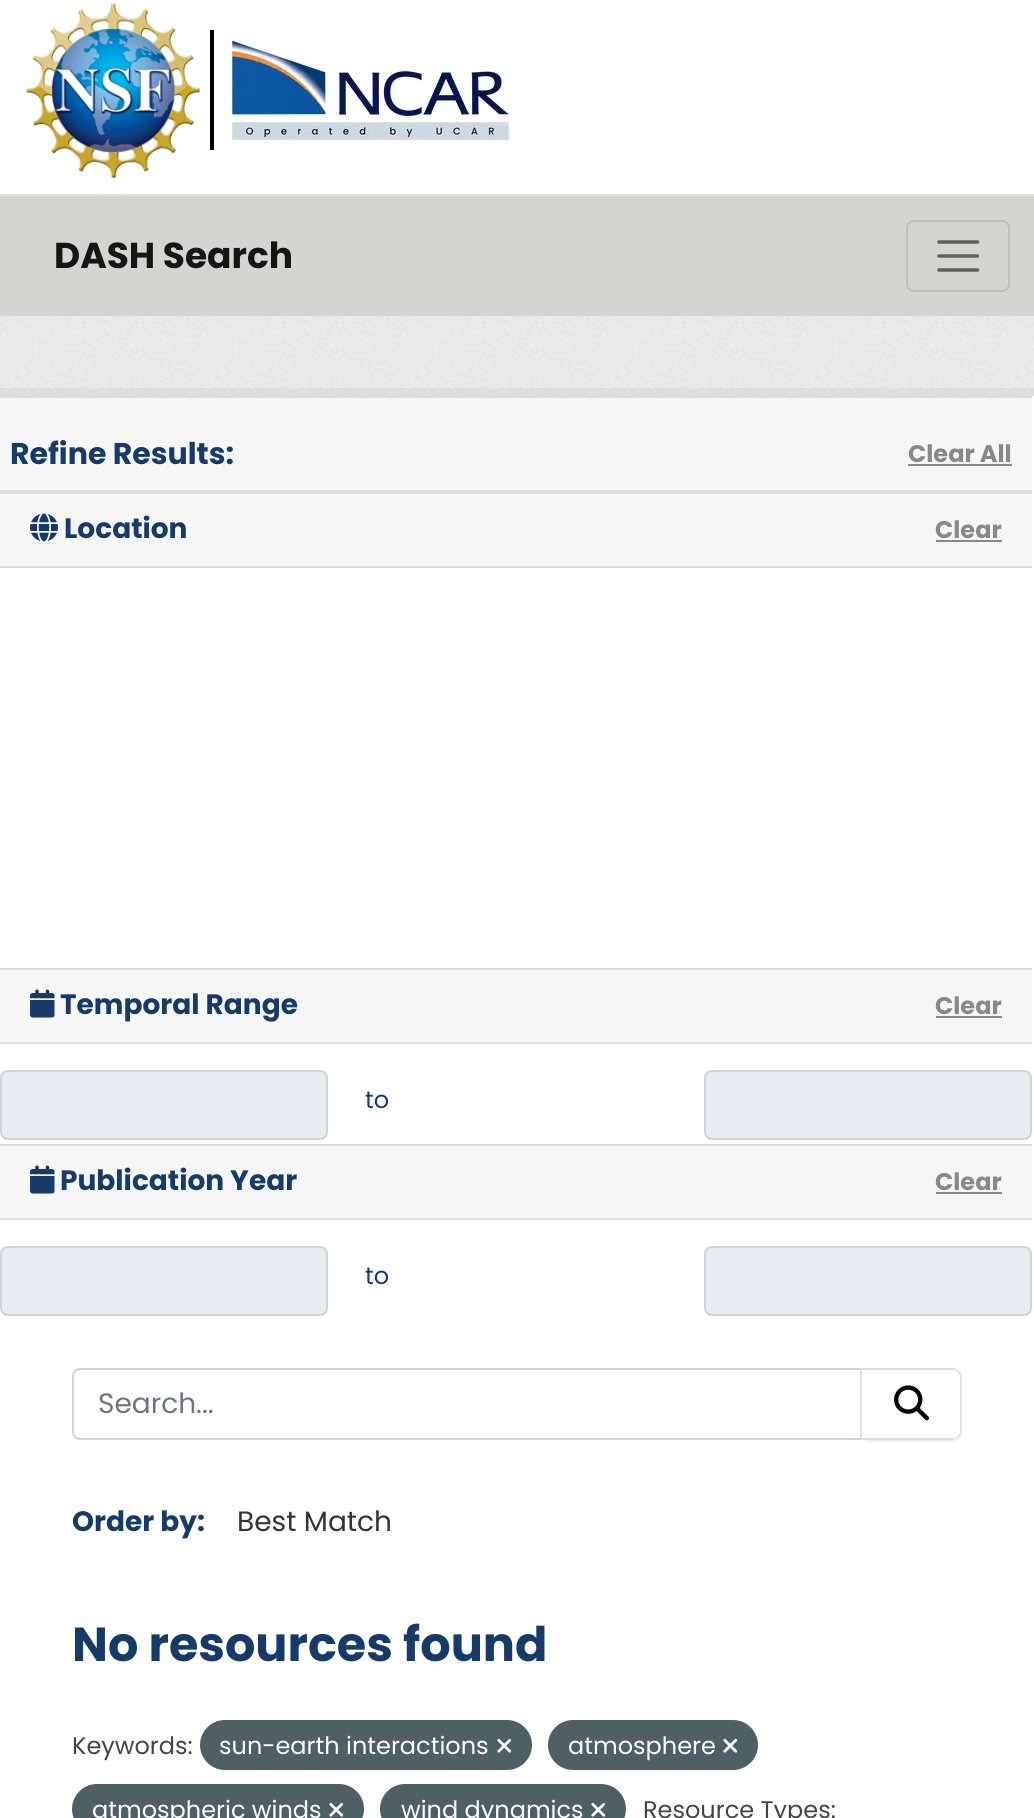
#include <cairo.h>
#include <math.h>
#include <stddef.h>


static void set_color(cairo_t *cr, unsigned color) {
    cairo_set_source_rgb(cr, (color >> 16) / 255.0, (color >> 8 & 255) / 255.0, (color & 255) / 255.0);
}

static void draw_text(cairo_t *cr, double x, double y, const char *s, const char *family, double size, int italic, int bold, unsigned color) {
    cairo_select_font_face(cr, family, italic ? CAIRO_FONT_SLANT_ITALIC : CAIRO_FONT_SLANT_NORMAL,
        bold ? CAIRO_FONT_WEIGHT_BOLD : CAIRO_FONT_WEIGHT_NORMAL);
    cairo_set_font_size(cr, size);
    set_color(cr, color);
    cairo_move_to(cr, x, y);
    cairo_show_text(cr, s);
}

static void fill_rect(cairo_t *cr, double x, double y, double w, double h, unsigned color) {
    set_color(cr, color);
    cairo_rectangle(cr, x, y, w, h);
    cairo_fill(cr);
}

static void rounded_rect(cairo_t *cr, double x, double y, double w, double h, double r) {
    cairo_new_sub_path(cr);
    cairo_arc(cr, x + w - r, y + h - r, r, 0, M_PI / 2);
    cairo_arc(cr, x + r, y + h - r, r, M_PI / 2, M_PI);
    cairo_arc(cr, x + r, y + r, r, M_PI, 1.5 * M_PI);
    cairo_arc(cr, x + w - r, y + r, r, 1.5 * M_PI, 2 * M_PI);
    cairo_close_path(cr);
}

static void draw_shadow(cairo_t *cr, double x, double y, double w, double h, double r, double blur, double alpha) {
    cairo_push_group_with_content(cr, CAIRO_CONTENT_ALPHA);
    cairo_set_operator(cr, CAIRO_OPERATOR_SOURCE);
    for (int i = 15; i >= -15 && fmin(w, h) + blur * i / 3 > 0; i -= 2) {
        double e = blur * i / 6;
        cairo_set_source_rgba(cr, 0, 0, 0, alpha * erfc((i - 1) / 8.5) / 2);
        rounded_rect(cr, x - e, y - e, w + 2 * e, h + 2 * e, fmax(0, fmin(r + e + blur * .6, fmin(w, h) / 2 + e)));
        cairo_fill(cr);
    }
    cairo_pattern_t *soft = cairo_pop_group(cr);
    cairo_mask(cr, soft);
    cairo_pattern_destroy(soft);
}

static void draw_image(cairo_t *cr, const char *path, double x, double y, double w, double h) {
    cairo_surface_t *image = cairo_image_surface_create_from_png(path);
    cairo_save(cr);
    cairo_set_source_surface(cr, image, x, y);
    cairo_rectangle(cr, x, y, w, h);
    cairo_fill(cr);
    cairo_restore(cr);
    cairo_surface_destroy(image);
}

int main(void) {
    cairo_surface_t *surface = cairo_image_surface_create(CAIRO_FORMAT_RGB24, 1034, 1818);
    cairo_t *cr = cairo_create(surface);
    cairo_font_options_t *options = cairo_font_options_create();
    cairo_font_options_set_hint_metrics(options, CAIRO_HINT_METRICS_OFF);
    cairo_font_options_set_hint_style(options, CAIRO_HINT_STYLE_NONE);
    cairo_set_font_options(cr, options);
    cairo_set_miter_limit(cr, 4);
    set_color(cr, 0xFFFFFF);
    cairo_paint(cr);
    draw_image(cr, "assets/img1.png", 26, 3, 174, 175);
    fill_rect(cr, 210, 30, 4, 120, 0x000000);
    draw_image(cr, "assets/img2.png", 232, 40, 277, 100);
    fill_rect(cr, 0, 196, 1034, 120, 0xD4D4D0);
    fill_rect(cr, 0, 194, 1034, 2, 0xDEE2E6);
    draw_text(cr, 54, 268, "DASH Search", "Poppins", 36, 0, 1, 0x151515);
    rounded_rect(cr, 907, 221, 102, 70, 7);
    set_color(cr, 0xBFBFBB);
    cairo_stroke(cr);
    cairo_new_path(cr);
    cairo_move_to(cr, 939, 242);
    cairo_line_to(cr, 977.5, 242);
    cairo_move_to(cr, 939, 256);
    cairo_line_to(cr, 977.5, 256);
    cairo_move_to(cr, 939, 270);
    cairo_line_to(cr, 977.5, 270);
    set_color(cr, 0x5F5F5E);
    cairo_set_line_width(cr, 3.5);
    cairo_set_line_cap(cr, CAIRO_LINE_CAP_ROUND);
    cairo_stroke(cr);
    fill_rect(cr, 0, 316, 1034, 80, 0xEEEEEE);
    draw_image(cr, "assets/img3.png", 0, 316, 1034, 80);
    cairo_rectangle(cr, -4, 392, 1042, 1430);
    cairo_set_source_rgba(cr, 0, 0, 0, 0.05);
    cairo_set_line_width(cr, 8);
    cairo_set_line_cap(cr, CAIRO_LINE_CAP_BUTT);
    cairo_stroke(cr);
    fill_rect(cr, 0, 398, 1032, 92, 0xF6F6F6);
    fill_rect(cr, 0, 396, 1032, 2, 0xDDDDDD);
    fill_rect(cr, 0, 490, 1032, 4, 0xDDDDDD);
    draw_text(cr, 10, 464, "Refine Results:", "Poppins", 30, 0, 1, 0x163B69);
    draw_text(cr, 908, 462, "Clear All", "Poppins", 24, 0, 1, 0x888888);
    fill_rect(cr, 908, 464, 104, 2, 0x888888);
    fill_rect(cr, 0, 494, 1032, 72, 0xF6F6F6);
    fill_rect(cr, 0, 566, 1032, 2, 0xDDDDDD);
    draw_image(cr, "assets/img4.png", 30, 513, 28, 29);
    draw_text(cr, 64, 538, "Location", "Poppins", 28, 0, 1, 0x163B69);
    draw_text(cr, 935, 538, "Clear", "Poppins", 24, 0, 1, 0x888888);
    fill_rect(cr, 936, 540, 66, 2, 0x888888);
    fill_rect(cr, 0, 970, 1032, 72, 0xF6F6F6);
    fill_rect(cr, 0, 968, 1032, 2, 0xDDDDDD);
    fill_rect(cr, 0, 1042, 1032, 2, 0xDDDDDD);
    draw_image(cr, "assets/img5.png", 30, 989, 25, 29);
    draw_text(cr, 60, 1014, "Temporal Range", "Poppins", 28, 0, 1, 0x163B69);
    draw_text(cr, 935, 1014, "Clear", "Poppins", 24, 0, 1, 0x888888);
    fill_rect(cr, 936, 1016, 66, 2, 0x888888);
    set_color(cr, 0xE9ECEF);
    rounded_rect(cr, 1, 1071, 326, 68, 7);
    cairo_fill_preserve(cr);
    set_color(cr, 0xCED4DA);
    cairo_set_line_width(cr, 2);
    cairo_stroke(cr);
    draw_text(cr, 365, 1108, "to", "Poppins", 24, 0, 0, 0x163B69);
    set_color(cr, 0xE9ECEF);
    rounded_rect(cr, 705, 1071, 326, 68, 7);
    cairo_fill_preserve(cr);
    set_color(cr, 0xCED4DA);
    cairo_stroke(cr);
    fill_rect(cr, 0, 1146, 1032, 72, 0xF6F6F6);
    fill_rect(cr, 0, 1144, 1032, 2, 0xDDDDDD);
    fill_rect(cr, 0, 1218, 1032, 2, 0xDDDDDD);
    draw_image(cr, "assets/img5.png", 30, 1165, 25, 29);
    draw_text(cr, 60, 1190, "Publication Year", "Poppins", 28, 0, 1, 0x163B69);
    draw_text(cr, 935, 1190, "Clear", "Poppins", 24, 0, 1, 0x888888);
    fill_rect(cr, 936, 1192, 66, 2, 0x888888);
    set_color(cr, 0xE9ECEF);
    rounded_rect(cr, 1, 1247, 326, 68, 7);
    cairo_fill_preserve(cr);
    set_color(cr, 0xCED4DA);
    cairo_stroke(cr);
    draw_text(cr, 365, 1284, "to", "Poppins", 24, 0, 0, 0x163B69);
    set_color(cr, 0xE9ECEF);
    rounded_rect(cr, 705, 1247, 326, 68, 7);
    cairo_fill_preserve(cr);
    set_color(cr, 0xCED4DA);
    cairo_stroke(cr);
    cairo_new_path(cr);
    cairo_move_to(cr, 80, 1369);
    cairo_line_to(cr, 861, 1369);
    cairo_line_to(cr, 861, 1439);
    cairo_line_to(cr, 80, 1439);
    cairo_curve_to(cr, 76, 1439, 73, 1436, 73, 1432);
    cairo_line_to(cr, 73, 1376);
    cairo_curve_to(cr, 73, 1372, 76, 1369, 80, 1369);
    cairo_close_path(cr);
    cairo_stroke(cr);
    draw_text(cr, 98, 1413, "Search...", "Poppins", 28, 0, 0, 0x6C757D);
    set_color(cr, 0x000000);
    draw_shadow(cr, 860, 1370, 102, 72, 10, 1, 0.07);
    set_color(cr, 0xFFFFFF);
    cairo_new_path(cr);
    cairo_move_to(cr, 861, 1369);
    cairo_line_to(cr, 952, 1369);
    cairo_curve_to(cr, 957, 1369, 961, 1373, 961, 1378);
    cairo_line_to(cr, 961, 1430);
    cairo_curve_to(cr, 961, 1435, 957, 1439, 952, 1439);
    cairo_line_to(cr, 861, 1439);
    cairo_close_path(cr);
    cairo_fill_preserve(cr);
    set_color(cr, 0xDEE2E6);
    cairo_stroke(cr);
    draw_image(cr, "assets/img6.png", 894, 1385, 35, 36);
    draw_text(cr, 72, 1531, "Order by:", "Poppins", 28, 0, 1, 0x163B69);
    draw_text(cr, 237, 1531, "Best Match", "Poppins", 28, 0, 0, 0x333333);
    draw_text(cr, 72, 1661, "No resources found", "Poppins", 47.75, 0, 1, 0x163B69);
    draw_text(cr, 72, 1754, "Keywords:", "Poppins", 24, 0, 0, 0x444444);
    set_color(cr, 0x4E5F65);
    rounded_rect(cr, 200, 1720, 332, 50, 25);
    cairo_fill(cr);
    draw_text(cr, 219, 1754, "sun-earth interactions", "Poppins", 24, 0, 0, 0xFFFFFF);
    draw_image(cr, "assets/img7.png", 497, 1738, 15, 15);
    set_color(cr, 0x4E5F65);
    rounded_rect(cr, 548, 1720, 210, 50, 25);
    cairo_fill(cr);
    draw_text(cr, 568, 1754, "atmosphere", "Poppins", 24, 0, 0, 0xFFFFFF);
    draw_image(cr, "assets/img7.png", 723, 1738, 15, 15);
    set_color(cr, 0x4E5F65);
    rounded_rect(cr, 72, 1784, 292, 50, 25);
    cairo_fill(cr);
    draw_text(cr, 92, 1818, "atmospheric winds", "Poppins", 24, 0, 0, 0xFFFFFF);
    draw_image(cr, "assets/img7.png", 329, 1802, 15, 15);
    set_color(cr, 0x4E5F65);
    rounded_rect(cr, 380, 1784, 246, 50, 25);
    cairo_fill(cr);
    draw_text(cr, 401, 1818, "wind dynamics", "Poppins", 24, 0, 0, 0xFFFFFF);
    draw_image(cr, "assets/img7.png", 591, 1802, 15, 15);
    draw_text(cr, 643, 1818, "Resource Types:", "Poppins", 24, 0, 0, 0x444444);
    cairo_surface_write_to_png(surface, "output.png");
    cairo_font_options_destroy(options);
    cairo_destroy(cr);
    cairo_surface_destroy(surface);
    return 0;
}
